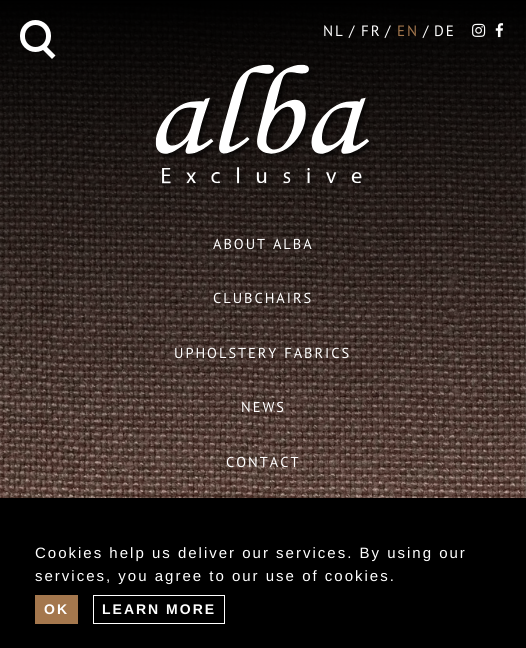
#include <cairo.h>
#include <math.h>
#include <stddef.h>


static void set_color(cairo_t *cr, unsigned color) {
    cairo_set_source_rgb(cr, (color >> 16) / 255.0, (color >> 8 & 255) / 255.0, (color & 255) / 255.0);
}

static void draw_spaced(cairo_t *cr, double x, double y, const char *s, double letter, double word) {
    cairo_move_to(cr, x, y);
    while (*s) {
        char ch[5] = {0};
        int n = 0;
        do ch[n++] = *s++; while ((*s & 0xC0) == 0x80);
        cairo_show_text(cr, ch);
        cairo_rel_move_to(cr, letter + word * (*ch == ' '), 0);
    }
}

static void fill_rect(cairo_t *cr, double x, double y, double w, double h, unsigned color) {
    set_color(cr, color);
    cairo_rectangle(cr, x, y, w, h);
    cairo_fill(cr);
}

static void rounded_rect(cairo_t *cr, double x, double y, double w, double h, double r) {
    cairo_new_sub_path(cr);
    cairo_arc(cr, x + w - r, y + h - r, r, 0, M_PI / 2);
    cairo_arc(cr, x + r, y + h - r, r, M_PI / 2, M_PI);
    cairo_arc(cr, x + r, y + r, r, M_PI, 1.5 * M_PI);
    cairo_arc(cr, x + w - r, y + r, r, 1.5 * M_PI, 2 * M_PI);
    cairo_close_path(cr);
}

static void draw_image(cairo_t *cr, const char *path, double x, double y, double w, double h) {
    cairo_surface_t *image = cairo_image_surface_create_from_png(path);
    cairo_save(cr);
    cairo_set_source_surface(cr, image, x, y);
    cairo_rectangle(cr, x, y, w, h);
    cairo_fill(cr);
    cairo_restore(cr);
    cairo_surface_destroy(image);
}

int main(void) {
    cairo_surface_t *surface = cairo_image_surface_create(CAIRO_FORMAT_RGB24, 526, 648);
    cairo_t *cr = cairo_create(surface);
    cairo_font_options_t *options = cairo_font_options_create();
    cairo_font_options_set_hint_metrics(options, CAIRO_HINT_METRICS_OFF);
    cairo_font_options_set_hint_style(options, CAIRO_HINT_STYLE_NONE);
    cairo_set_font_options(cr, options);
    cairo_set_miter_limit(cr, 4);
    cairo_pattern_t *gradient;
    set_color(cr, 0xFFFFFF);
    cairo_paint(cr);
    draw_image(cr, "assets/img1.png", 0, 3, 526, 495);
    gradient = cairo_pattern_create_linear(263, 0, 263, 498);
    cairo_pattern_add_color_stop_rgba(gradient, 0, 0, 0, 0, 1);
    cairo_pattern_add_color_stop_rgba(gradient, 1, 0, 0, 0, 0);
    cairo_set_source(cr, gradient);
    cairo_pattern_destroy(gradient);
    cairo_rectangle(cr, 0, 0, 526, 487);
    cairo_fill(cr);
    rounded_rect(cr, 22.5, 22.5, 26, 27, 13);
    set_color(cr, 0xFFFFFF);
    cairo_set_line_width(cr, 5);
    cairo_stroke(cr);
    cairo_new_path(cr);
    cairo_move_to(cr, 41.5, 48.5);
    cairo_line_to(cr, 45, 45);
    cairo_line_to(cr, 55.5, 55.5);
    cairo_line_to(cr, 52, 59);
    cairo_close_path(cr);
    cairo_fill(cr);
    cairo_select_font_face(cr, "PT Sans", CAIRO_FONT_SLANT_NORMAL, CAIRO_FONT_WEIGHT_NORMAL);
    cairo_set_font_size(cr, 15);
    draw_spaced(cr, 323, 36, "NL", 2, 0);
    draw_spaced(cr, 349, 36, "/", 2, 0);
    draw_spaced(cr, 361, 36, "FR", 2, 0);
    draw_spaced(cr, 385, 36, "/", 2, 0);
    set_color(cr, 0xA4774D);
    draw_spaced(cr, 397, 36, "EN", 2, 0);
    set_color(cr, 0xFFFFFF);
    draw_spaced(cr, 423, 36, "/", 2, 0);
    draw_spaced(cr, 434, 36, "DE", 2, 0);
    draw_image(cr, "assets/img2.png", 472, 23, 14, 14);
    draw_image(cr, "assets/img3.png", 495, 23, 9, 15);
    draw_image(cr, "assets/img4.png", 155, 64, 218, 124);
    cairo_set_font_size(cr, 14.4);
    draw_spaced(cr, 213, 249, "ABOUT ALBA", 2, 0);
    draw_spaced(cr, 213, 303, "CLUBCHAIRS", 2, 0);
    draw_spaced(cr, 174, 358, "UPHOLSTERY FABRICS", 2, 0);
    draw_spaced(cr, 241, 412, "NEWS", 2, 0);
    draw_spaced(cr, 226, 467, "CONTACT", 2, 0);
    fill_rect(cr, 0, 498, 526, 150, 0x000000);
    cairo_select_font_face(cr, "Liberation Sans", CAIRO_FONT_SLANT_NORMAL, CAIRO_FONT_WEIGHT_NORMAL);
    cairo_set_font_size(cr, 15);
    set_color(cr, 0xFFFFFF);
    draw_spaced(cr, 35, 558, "Cookies help us deliver our services. By using our", 2, 0);
    draw_spaced(cr, 35, 581, "services, you agree to our use of cookies.", 2, 0);
    fill_rect(cr, 35, 595, 43, 29, 0xA4774D);
    cairo_select_font_face(cr, "Liberation Sans", CAIRO_FONT_SLANT_NORMAL, CAIRO_FONT_WEIGHT_BOLD);
    cairo_set_font_size(cr, 14);
    set_color(cr, 0xFFFFFF);
    draw_spaced(cr, 44, 614, "OK", 2, 0);
    cairo_rectangle(cr, 93.5, 595.5, 131, 28);
    cairo_set_line_width(cr, 1);
    cairo_stroke(cr);
    draw_spaced(cr, 102, 614, "LEARN MORE", 2, 0);
    cairo_surface_write_to_png(surface, "output.png");
    cairo_font_options_destroy(options);
    cairo_destroy(cr);
    cairo_surface_destroy(surface);
    return 0;
}
